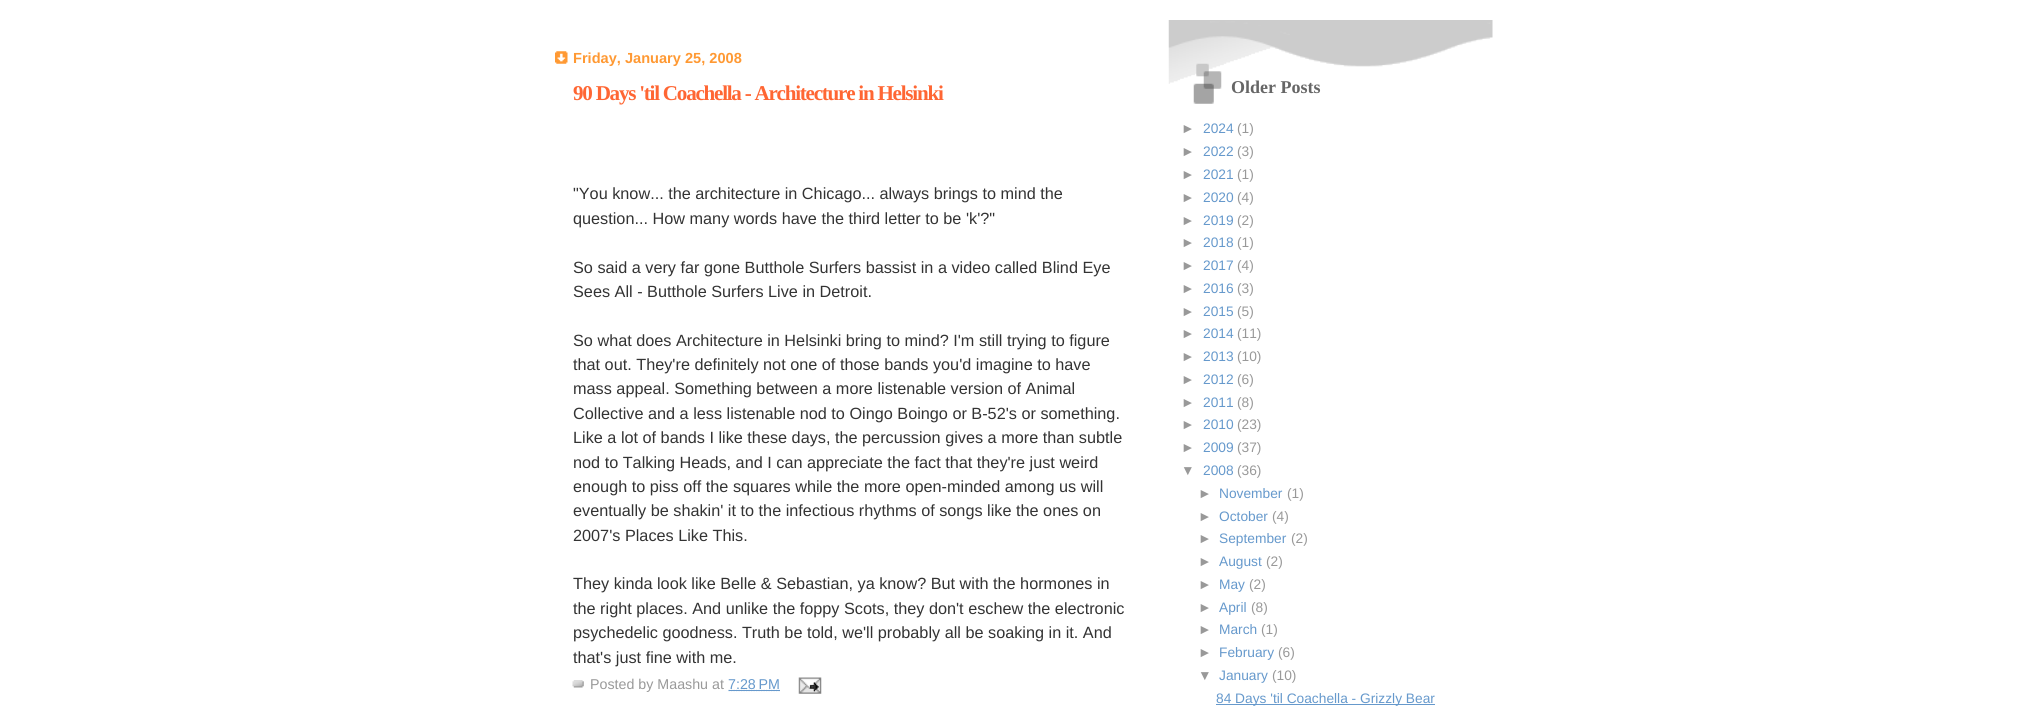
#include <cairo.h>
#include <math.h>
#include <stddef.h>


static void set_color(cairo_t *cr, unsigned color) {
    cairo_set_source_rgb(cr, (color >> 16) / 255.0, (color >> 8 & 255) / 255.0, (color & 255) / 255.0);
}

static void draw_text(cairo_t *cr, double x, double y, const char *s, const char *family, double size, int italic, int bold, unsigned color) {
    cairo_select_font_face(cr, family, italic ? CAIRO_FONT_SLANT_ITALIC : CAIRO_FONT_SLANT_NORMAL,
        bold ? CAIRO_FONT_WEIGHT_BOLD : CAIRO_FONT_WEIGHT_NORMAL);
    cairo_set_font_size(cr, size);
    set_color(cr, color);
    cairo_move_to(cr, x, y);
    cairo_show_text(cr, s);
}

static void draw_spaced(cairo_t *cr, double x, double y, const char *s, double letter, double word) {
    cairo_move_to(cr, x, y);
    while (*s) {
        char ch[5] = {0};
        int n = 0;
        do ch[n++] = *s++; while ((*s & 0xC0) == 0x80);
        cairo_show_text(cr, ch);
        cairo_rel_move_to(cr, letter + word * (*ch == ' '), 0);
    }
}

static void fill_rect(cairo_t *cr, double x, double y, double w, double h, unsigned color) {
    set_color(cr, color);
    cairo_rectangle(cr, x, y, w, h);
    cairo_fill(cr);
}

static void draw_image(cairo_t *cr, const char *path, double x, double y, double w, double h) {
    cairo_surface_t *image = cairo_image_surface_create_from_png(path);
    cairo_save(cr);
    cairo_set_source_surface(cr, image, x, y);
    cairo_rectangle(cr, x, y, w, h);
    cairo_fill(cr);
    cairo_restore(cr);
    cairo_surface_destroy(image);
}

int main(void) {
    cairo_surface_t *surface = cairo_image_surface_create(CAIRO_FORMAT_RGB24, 2031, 712);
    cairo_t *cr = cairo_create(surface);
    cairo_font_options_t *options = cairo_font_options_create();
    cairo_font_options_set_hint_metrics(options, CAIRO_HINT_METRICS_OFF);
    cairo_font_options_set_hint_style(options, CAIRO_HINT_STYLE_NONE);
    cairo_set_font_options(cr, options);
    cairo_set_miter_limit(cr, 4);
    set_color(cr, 0xFFFFFF);
    cairo_paint(cr);
    draw_image(cr, "assets/img1.png", 555, 51, 13, 13);
    draw_text(cr, 573, 63, "Friday, January 25, 2008", "Liberation Sans", 14.6, 0, 1, 0xFF9933);
    cairo_select_font_face(cr, "Liberation Serif", CAIRO_FONT_SLANT_NORMAL, CAIRO_FONT_WEIGHT_BOLD);
    cairo_set_font_size(cr, 21.1);
    set_color(cr, 0xFF6633);
    draw_spaced(cr, 573, 100, "90 Days 'til Coachella - Architecture in Helsinki", -1.25, 0);
    draw_text(cr, 573, 199, "\"You know... the architecture in Chicago... always brings to mind the", "Liberation Sans", 16.25, 0, 0, 0x333333);
    draw_text(cr, 573, 224, "question... How many words have the third letter to be 'k'?\"", "Liberation Sans", 16.25, 0, 0, 0x333333);
    draw_text(cr, 573, 273, "So said a very far gone Butthole Surfers bassist in a video called Blind Eye", "Liberation Sans", 16.25, 0, 0, 0x333333);
    draw_text(cr, 573, 297, "Sees All - Butthole Surfers Live in Detroit.", "Liberation Sans", 16.25, 0, 0, 0x333333);
    draw_text(cr, 573, 346, "So what does Architecture in Helsinki bring to mind? I'm still trying to figure", "Liberation Sans", 16.25, 0, 0, 0x333333);
    draw_text(cr, 573, 370, "that out. They're definitely not one of those bands you'd imagine to have", "Liberation Sans", 16.25, 0, 0, 0x333333);
    draw_text(cr, 573, 394, "mass appeal. Something between a more listenable version of Animal", "Liberation Sans", 16.25, 0, 0, 0x333333);
    draw_text(cr, 573, 419, "Collective and a less listenable nod to Oingo Boingo or B-52's or something.", "Liberation Sans", 16.25, 0, 0, 0x333333);
    draw_text(cr, 573, 443, "Like a lot of bands I like these days, the percussion gives a more than subtle", "Liberation Sans", 16.25, 0, 0, 0x333333);
    draw_text(cr, 573, 468, "nod to Talking Heads, and I can appreciate the fact that they're just weird", "Liberation Sans", 16.25, 0, 0, 0x333333);
    draw_text(cr, 573, 492, "enough to piss off the squares while the more open-minded among us will", "Liberation Sans", 16.25, 0, 0, 0x333333);
    draw_text(cr, 573, 516, "eventually be shakin' it to the infectious rhythms of songs like the ones on", "Liberation Sans", 16.25, 0, 0, 0x333333);
    draw_text(cr, 573, 541, "2007's Places Like This.", "Liberation Sans", 16.25, 0, 0, 0x333333);
    draw_text(cr, 573, 589, "They kinda look like Belle & Sebastian, ya know? But with the hormones in", "Liberation Sans", 16.25, 0, 0, 0x333333);
    draw_text(cr, 573, 614, "the right places. And unlike the foppy Scots, they don't eschew the electronic", "Liberation Sans", 16.25, 0, 0, 0x333333);
    draw_text(cr, 573, 638, "psychedelic goodness. Truth be told, we'll probably all be soaking in it. And", "Liberation Sans", 16.25, 0, 0, 0x333333);
    draw_text(cr, 573, 663, "that's just fine with me.", "Liberation Sans", 16.25, 0, 0, 0x333333);
    draw_image(cr, "assets/img2.png", 572, 680, 12, 8);
    draw_text(cr, 590, 689, "Posted by Maashu at", "Liberation Sans", 14.25, 0, 0, 0x999999);
    cairo_new_path(cr);
    cairo_move_to(cr, 728.5, 690.5);
    cairo_line_to(cr, 780.5, 690.5);
    set_color(cr, 0x6699CC);
    cairo_set_line_width(cr, 1.2);
    cairo_set_dash(cr, (double[]){1.25, 1.25}, 2, 0);
    cairo_stroke(cr);
    draw_text(cr, 728, 689, "7:28 PM", "Liberation Sans", 14.25, 0, 0, 0x6699CC);
    fill_rect(cr, 729, 690, 51, 1, 0x6699CC);
    draw_image(cr, "assets/img3.png", 798, 677, 24, 17);
    draw_image(cr, "assets/img4.png", 1168, 20, 325, 64);
    draw_image(cr, "assets/img5.png", 1193, 63, 29, 41);
    draw_text(cr, 1231, 93, "Older Posts", "Liberation Serif", 18, 0, 1, 0x666666);
    draw_text(cr, 1181, 133, "►", "Liberation Sans", 13.75, 0, 0, 0x999999);
    draw_text(cr, 1203, 133, "2024", "Liberation Sans", 13.75, 0, 0, 0x6699CC);
    draw_text(cr, 1237, 133, "(1)", "Liberation Sans", 13.75, 0, 0, 0x999999);
    draw_text(cr, 1181, 156, "►", "Liberation Sans", 13.75, 0, 0, 0x999999);
    draw_text(cr, 1203, 156, "2022", "Liberation Sans", 13.75, 0, 0, 0x6699CC);
    draw_text(cr, 1237, 156, "(3)", "Liberation Sans", 13.75, 0, 0, 0x999999);
    draw_text(cr, 1181, 179, "►", "Liberation Sans", 13.75, 0, 0, 0x999999);
    draw_text(cr, 1203, 179, "2021", "Liberation Sans", 13.75, 0, 0, 0x6699CC);
    draw_text(cr, 1237, 179, "(1)", "Liberation Sans", 13.75, 0, 0, 0x999999);
    draw_text(cr, 1181, 202, "►", "Liberation Sans", 13.75, 0, 0, 0x999999);
    draw_text(cr, 1203, 202, "2020", "Liberation Sans", 13.75, 0, 0, 0x6699CC);
    draw_text(cr, 1237, 202, "(4)", "Liberation Sans", 13.75, 0, 0, 0x999999);
    draw_text(cr, 1181, 225, "►", "Liberation Sans", 13.75, 0, 0, 0x999999);
    draw_text(cr, 1203, 225, "2019", "Liberation Sans", 13.75, 0, 0, 0x6699CC);
    draw_text(cr, 1237, 225, "(2)", "Liberation Sans", 13.75, 0, 0, 0x999999);
    draw_text(cr, 1181, 247, "►", "Liberation Sans", 13.75, 0, 0, 0x999999);
    draw_text(cr, 1203, 247, "2018", "Liberation Sans", 13.75, 0, 0, 0x6699CC);
    draw_text(cr, 1237, 247, "(1)", "Liberation Sans", 13.75, 0, 0, 0x999999);
    draw_text(cr, 1181, 270, "►", "Liberation Sans", 13.75, 0, 0, 0x999999);
    draw_text(cr, 1203, 270, "2017", "Liberation Sans", 13.75, 0, 0, 0x6699CC);
    draw_text(cr, 1237, 270, "(4)", "Liberation Sans", 13.75, 0, 0, 0x999999);
    draw_text(cr, 1181, 293, "►", "Liberation Sans", 13.75, 0, 0, 0x999999);
    draw_text(cr, 1203, 293, "2016", "Liberation Sans", 13.75, 0, 0, 0x6699CC);
    draw_text(cr, 1237, 293, "(3)", "Liberation Sans", 13.75, 0, 0, 0x999999);
    draw_text(cr, 1181, 316, "►", "Liberation Sans", 13.75, 0, 0, 0x999999);
    draw_text(cr, 1203, 316, "2015", "Liberation Sans", 13.75, 0, 0, 0x6699CC);
    draw_text(cr, 1237, 316, "(5)", "Liberation Sans", 13.75, 0, 0, 0x999999);
    draw_text(cr, 1181, 338, "►", "Liberation Sans", 13.75, 0, 0, 0x999999);
    draw_text(cr, 1203, 338, "2014", "Liberation Sans", 13.75, 0, 0, 0x6699CC);
    draw_text(cr, 1237, 338, "(11)", "Liberation Sans", 13.75, 0, 0, 0x999999);
    draw_text(cr, 1181, 361, "►", "Liberation Sans", 13.75, 0, 0, 0x999999);
    draw_text(cr, 1203, 361, "2013", "Liberation Sans", 13.75, 0, 0, 0x6699CC);
    draw_text(cr, 1237, 361, "(10)", "Liberation Sans", 13.75, 0, 0, 0x999999);
    draw_text(cr, 1181, 384, "►", "Liberation Sans", 13.75, 0, 0, 0x999999);
    draw_text(cr, 1203, 384, "2012", "Liberation Sans", 13.75, 0, 0, 0x6699CC);
    draw_text(cr, 1237, 384, "(6)", "Liberation Sans", 13.75, 0, 0, 0x999999);
    draw_text(cr, 1181, 407, "►", "Liberation Sans", 13.75, 0, 0, 0x999999);
    draw_text(cr, 1203, 407, "2011", "Liberation Sans", 13.75, 0, 0, 0x6699CC);
    draw_text(cr, 1237, 407, "(8)", "Liberation Sans", 13.75, 0, 0, 0x999999);
    draw_text(cr, 1181, 429, "►", "Liberation Sans", 13.75, 0, 0, 0x999999);
    draw_text(cr, 1203, 429, "2010", "Liberation Sans", 13.75, 0, 0, 0x6699CC);
    draw_text(cr, 1237, 429, "(23)", "Liberation Sans", 13.75, 0, 0, 0x999999);
    draw_text(cr, 1181, 452, "►", "Liberation Sans", 13.75, 0, 0, 0x999999);
    draw_text(cr, 1203, 452, "2009", "Liberation Sans", 13.75, 0, 0, 0x6699CC);
    draw_text(cr, 1237, 452, "(37)", "Liberation Sans", 13.75, 0, 0, 0x999999);
    draw_text(cr, 1181, 475, "▼", "Liberation Sans", 13.75, 0, 0, 0x999999);
    draw_text(cr, 1203, 475, "2008", "Liberation Sans", 13.75, 0, 0, 0x6699CC);
    draw_text(cr, 1237, 475, "(36)", "Liberation Sans", 13.75, 0, 0, 0x999999);
    draw_text(cr, 1198, 498, "►", "Liberation Sans", 13.75, 0, 0, 0x999999);
    draw_text(cr, 1219, 498, "November", "Liberation Sans", 13.75, 0, 0, 0x6699CC);
    draw_text(cr, 1287, 498, "(1)", "Liberation Sans", 13.75, 0, 0, 0x999999);
    draw_text(cr, 1198, 521, "►", "Liberation Sans", 13.75, 0, 0, 0x999999);
    draw_text(cr, 1219, 521, "October", "Liberation Sans", 13.75, 0, 0, 0x6699CC);
    draw_text(cr, 1272, 521, "(4)", "Liberation Sans", 13.75, 0, 0, 0x999999);
    draw_text(cr, 1198, 543, "►", "Liberation Sans", 13.75, 0, 0, 0x999999);
    draw_text(cr, 1219, 543, "September", "Liberation Sans", 13.75, 0, 0, 0x6699CC);
    draw_text(cr, 1291, 543, "(2)", "Liberation Sans", 13.75, 0, 0, 0x999999);
    draw_text(cr, 1198, 566, "►", "Liberation Sans", 13.75, 0, 0, 0x999999);
    draw_text(cr, 1219, 566, "August", "Liberation Sans", 13.75, 0, 0, 0x6699CC);
    draw_text(cr, 1266, 566, "(2)", "Liberation Sans", 13.75, 0, 0, 0x999999);
    draw_text(cr, 1198, 589, "►", "Liberation Sans", 13.75, 0, 0, 0x999999);
    draw_text(cr, 1219, 589, "May", "Liberation Sans", 13.75, 0, 0, 0x6699CC);
    draw_text(cr, 1249, 589, "(2)", "Liberation Sans", 13.75, 0, 0, 0x999999);
    draw_text(cr, 1198, 612, "►", "Liberation Sans", 13.75, 0, 0, 0x999999);
    draw_text(cr, 1219, 612, "April", "Liberation Sans", 13.75, 0, 0, 0x6699CC);
    draw_text(cr, 1251, 612, "(8)", "Liberation Sans", 13.75, 0, 0, 0x999999);
    draw_text(cr, 1198, 634, "►", "Liberation Sans", 13.75, 0, 0, 0x999999);
    draw_text(cr, 1219, 634, "March", "Liberation Sans", 13.75, 0, 0, 0x6699CC);
    draw_text(cr, 1261, 634, "(1)", "Liberation Sans", 13.75, 0, 0, 0x999999);
    draw_text(cr, 1198, 657, "►", "Liberation Sans", 13.75, 0, 0, 0x999999);
    draw_text(cr, 1219, 657, "February", "Liberation Sans", 13.75, 0, 0, 0x6699CC);
    draw_text(cr, 1278, 657, "(6)", "Liberation Sans", 13.75, 0, 0, 0x999999);
    draw_text(cr, 1198, 680, "▼", "Liberation Sans", 13.75, 0, 0, 0x999999);
    draw_text(cr, 1219, 680, "January", "Liberation Sans", 13.75, 0, 0, 0x6699CC);
    draw_text(cr, 1272, 680, "(10)", "Liberation Sans", 13.75, 0, 0, 0x999999);
    fill_rect(cr, 1216, 704, 219, 1, 0x6699CC);
    draw_text(cr, 1216, 703, "84 Days 'til Coachella - Grizzly Bear", "Liberation Sans", 13.75, 0, 0, 0x6699CC);
    cairo_surface_write_to_png(surface, "output.png");
    cairo_font_options_destroy(options);
    cairo_destroy(cr);
    cairo_surface_destroy(surface);
    return 0;
}
